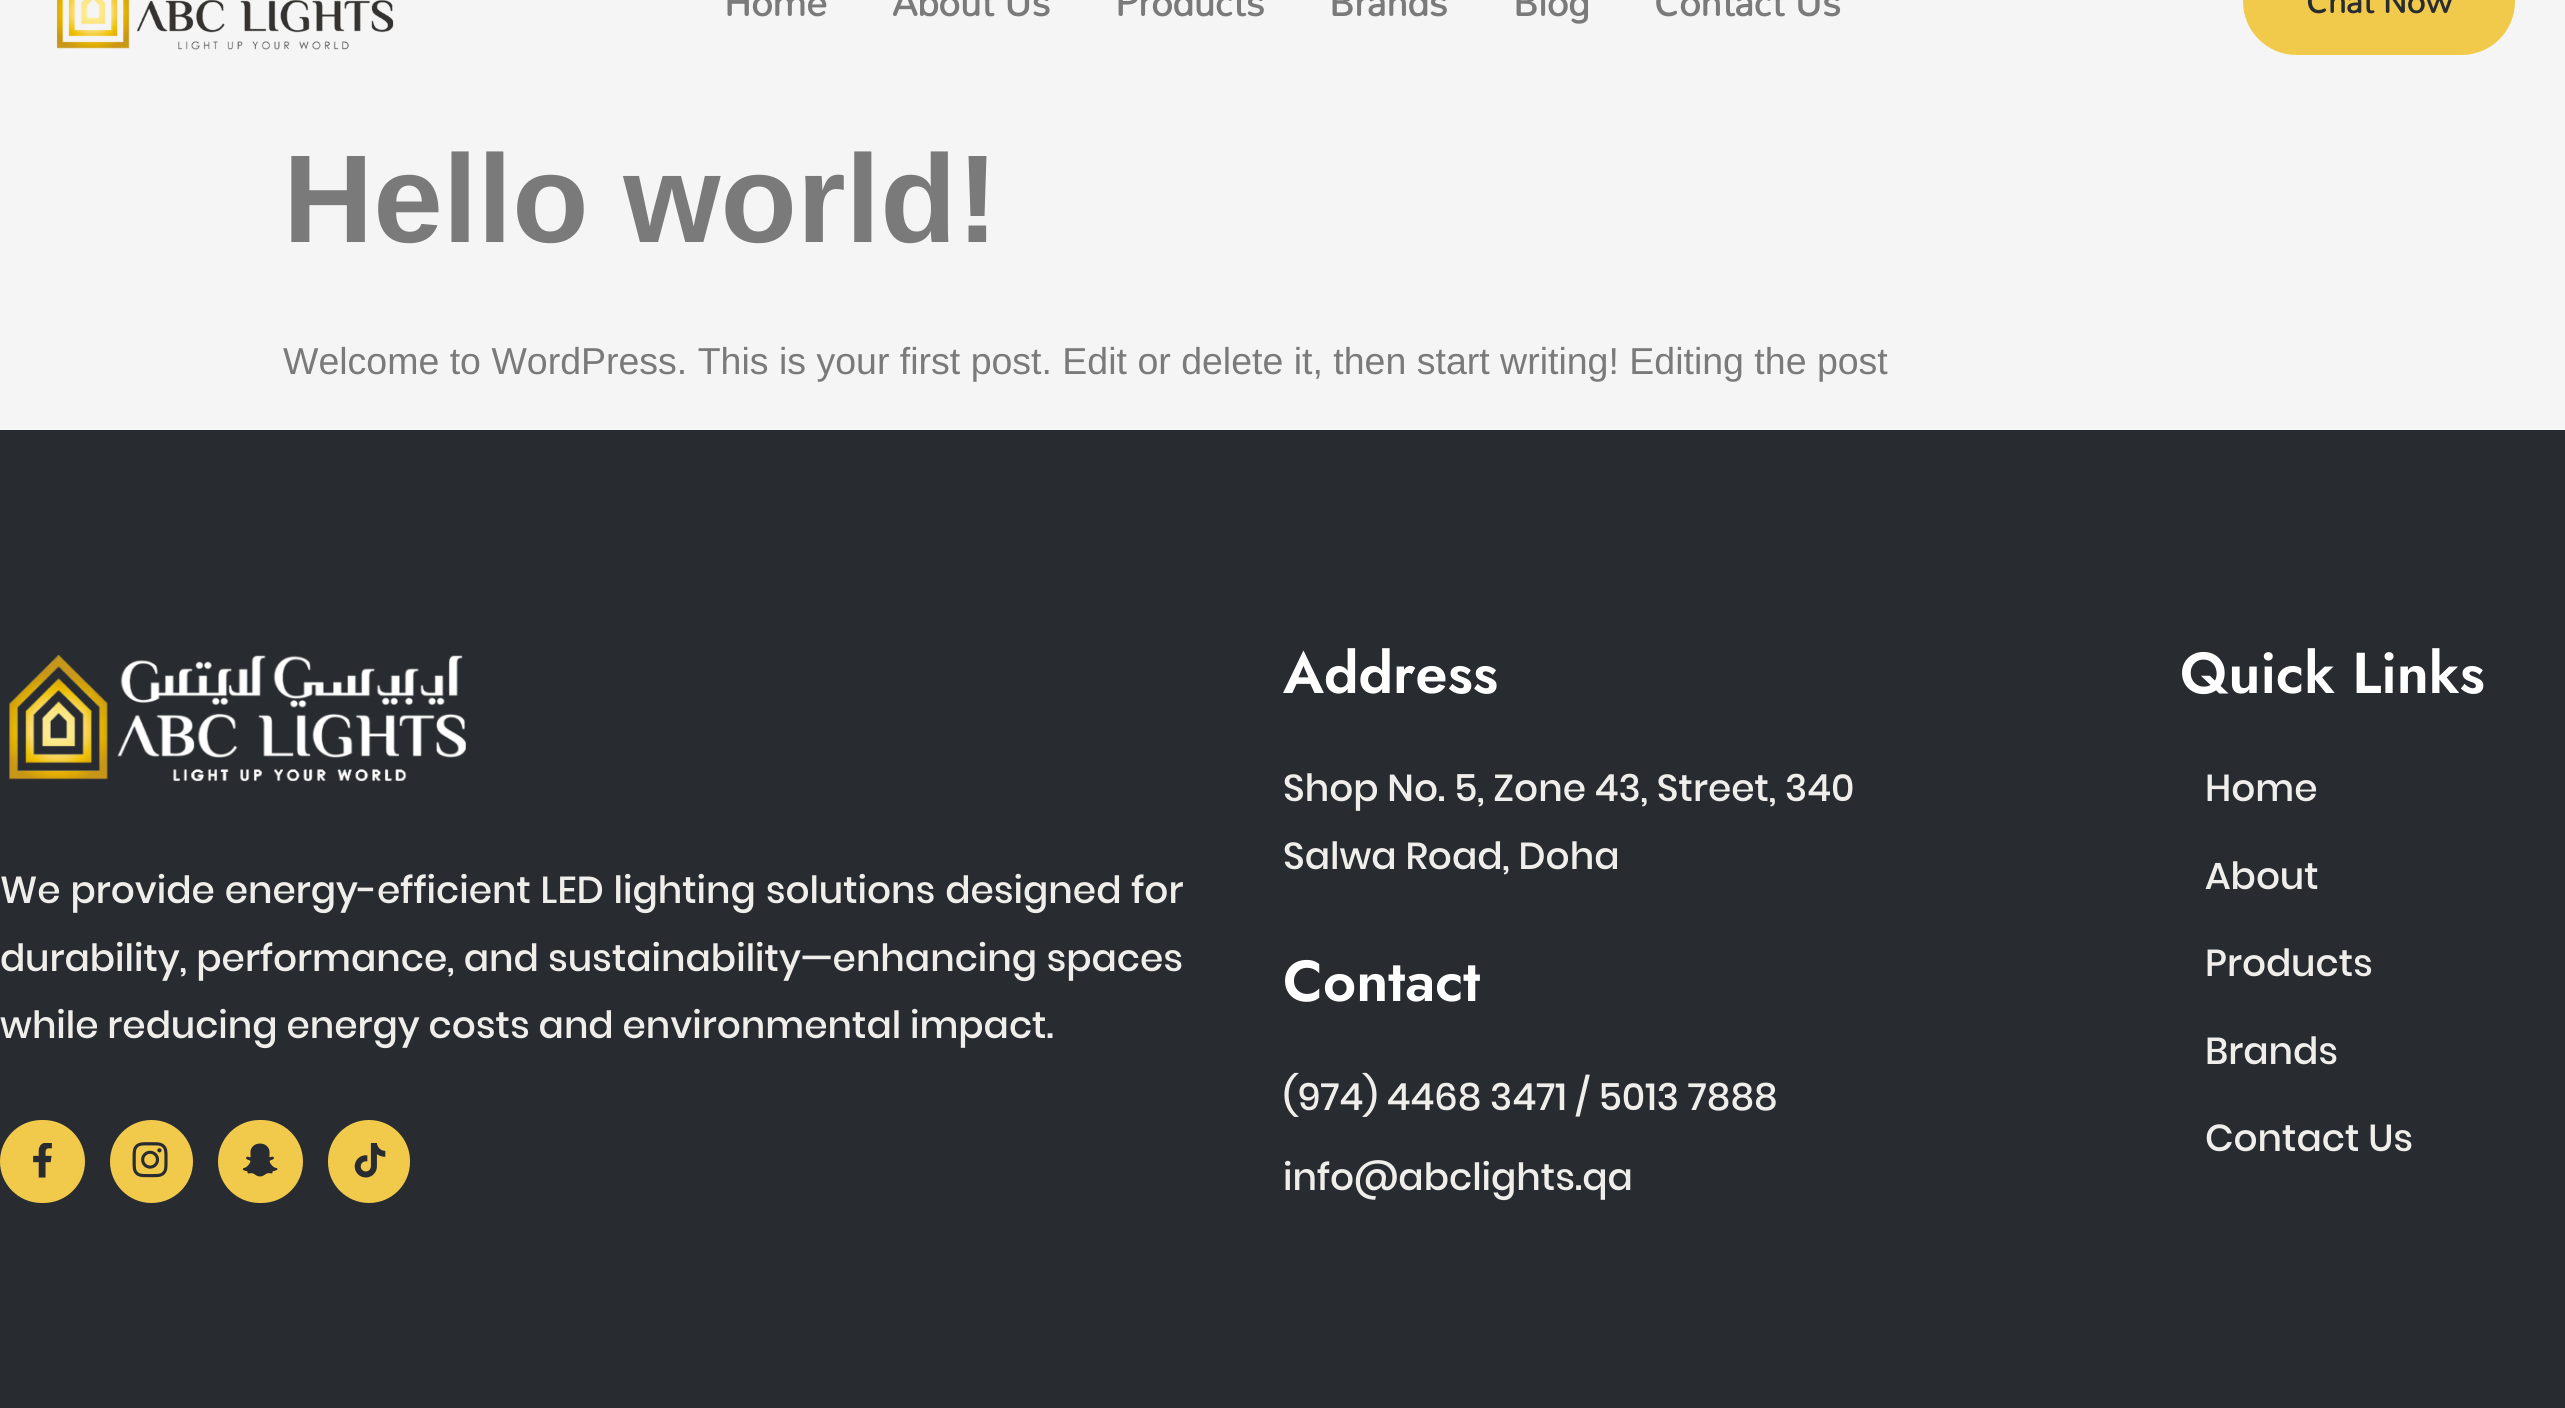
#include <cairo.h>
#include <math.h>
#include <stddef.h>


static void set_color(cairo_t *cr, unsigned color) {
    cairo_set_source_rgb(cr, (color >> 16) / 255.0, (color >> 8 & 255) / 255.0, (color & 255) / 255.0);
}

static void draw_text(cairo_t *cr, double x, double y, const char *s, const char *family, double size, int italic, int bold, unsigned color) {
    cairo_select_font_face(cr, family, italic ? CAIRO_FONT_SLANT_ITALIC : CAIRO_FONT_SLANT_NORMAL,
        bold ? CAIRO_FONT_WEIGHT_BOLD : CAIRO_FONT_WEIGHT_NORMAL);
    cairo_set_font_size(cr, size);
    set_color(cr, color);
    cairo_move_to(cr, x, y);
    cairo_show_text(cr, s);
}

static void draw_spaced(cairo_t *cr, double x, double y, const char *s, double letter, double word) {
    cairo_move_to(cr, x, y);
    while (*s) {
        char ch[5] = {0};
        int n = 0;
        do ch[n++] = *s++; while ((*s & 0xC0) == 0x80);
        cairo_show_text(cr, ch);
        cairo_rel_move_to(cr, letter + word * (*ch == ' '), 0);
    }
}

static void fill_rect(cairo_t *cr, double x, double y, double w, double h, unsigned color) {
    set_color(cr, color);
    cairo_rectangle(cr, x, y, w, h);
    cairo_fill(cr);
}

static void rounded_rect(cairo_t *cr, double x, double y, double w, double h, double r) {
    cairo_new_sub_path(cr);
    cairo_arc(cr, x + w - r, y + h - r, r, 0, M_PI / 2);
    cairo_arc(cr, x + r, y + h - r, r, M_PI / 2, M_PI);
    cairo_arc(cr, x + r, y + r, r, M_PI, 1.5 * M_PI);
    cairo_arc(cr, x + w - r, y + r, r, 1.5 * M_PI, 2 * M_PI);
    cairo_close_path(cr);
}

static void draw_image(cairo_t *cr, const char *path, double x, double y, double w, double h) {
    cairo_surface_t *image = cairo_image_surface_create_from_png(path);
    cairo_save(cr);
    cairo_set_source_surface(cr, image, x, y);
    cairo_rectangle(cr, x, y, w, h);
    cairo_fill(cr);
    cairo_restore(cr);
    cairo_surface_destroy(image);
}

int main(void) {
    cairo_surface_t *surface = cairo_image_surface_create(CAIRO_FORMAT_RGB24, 2565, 1408);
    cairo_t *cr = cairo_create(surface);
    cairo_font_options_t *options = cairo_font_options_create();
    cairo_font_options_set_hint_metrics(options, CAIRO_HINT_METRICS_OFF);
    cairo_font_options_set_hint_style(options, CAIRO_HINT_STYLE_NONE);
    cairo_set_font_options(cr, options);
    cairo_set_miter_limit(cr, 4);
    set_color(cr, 0xF5F5F5);
    cairo_paint(cr);
    draw_image(cr, "assets/img1.png", 56, 0, 338, 50);
    draw_text(cr, 724, 16, "Home", "Mandali", 37.5, 0, 1, 0x7A7A7A);
    draw_text(cr, 892, 16, "About Us", "Mandali", 37.5, 0, 1, 0x7A7A7A);
    draw_text(cr, 1115, 16, "Products", "Mandali", 37.5, 0, 1, 0x7A7A7A);
    draw_text(cr, 1329, 16, "Brands", "Mandali", 37.5, 0, 1, 0x7A7A7A);
    draw_text(cr, 1513, 16, "Blog", "Mandali", 37.5, 0, 1, 0x7A7A7A);
    draw_text(cr, 1654, 16, "Contact Us", "Mandali", 37.5, 0, 1, 0x7A7A7A);
    set_color(cr, 0xF2CA4B);
    rounded_rect(cr, 2243, -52, 272, 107, 53.5);
    cairo_fill(cr);
    draw_text(cr, 2306, 13, "Chat Now", "Mandali", 32.5, 0, 1, 0x282C31);
    draw_text(cr, 283, 242, "Hello world!", "Liberation Sans", 125, 0, 1, 0x7A7A7A);
    draw_text(cr, 283, 374, "Welcome to WordPress. This is your first post. Edit or delete it, then start writing! Editing the post", "Liberation Sans", 37.5, 0, 0, 0x7A7A7A);
    fill_rect(cr, 0, 430, 2565, 978, 0x282C31);
    draw_image(cr, "assets/img2.png", 9, 654, 458, 128);
    cairo_select_font_face(cr, "Poppins Medium", CAIRO_FONT_SLANT_NORMAL, CAIRO_FONT_WEIGHT_NORMAL);
    set_color(cr, 0xF0EEEA);
    draw_spaced(cr, 0, 903, "We provide energy-efficient LED lighting solutions designed for", 0, 1);
    draw_spaced(cr, 0, 971, "durability, performance, and sustainability—enhancing spaces", 0, 0.5);
    draw_text(cr, 0, 1038, "while reducing energy costs and environmental impact.", "Poppins Medium", 37.5, 0, 0, 0xF0EEEA);
    set_color(cr, 0xF2CA4B);
    rounded_rect(cr, 0, 1120, 85, 83, 41.5);
    cairo_fill(cr);
    draw_image(cr, "assets/img3.png", 33, 1143, 19, 35);
    cairo_arc(cr, 151.5, 1161.5, 41.5, 0, 2 * M_PI);
    cairo_fill(cr);
    draw_image(cr, "assets/img4.png", 132, 1142, 36, 36);
    rounded_rect(cr, 218, 1120, 85, 83, 41.5);
    cairo_fill(cr);
    draw_image(cr, "assets/img5.png", 243, 1143, 35, 34);
    rounded_rect(cr, 328, 1120, 82, 83, 41);
    cairo_fill(cr);
    draw_image(cr, "assets/img6.png", 354, 1143, 32, 35);
    draw_text(cr, 1283, 693, "Address", "Jost SemiBold", 57.5, 0, 0, 0xFFFFFF);
    draw_text(cr, 1283, 801, "Shop No. 5, Zone 43, Street, 340", "Poppins Medium", 37.5, 0, 0, 0xF0EEEA);
    draw_text(cr, 1283, 869, "Salwa Road, Doha", "Poppins Medium", 37.5, 0, 0, 0xF0EEEA);
    draw_text(cr, 1283, 1001, "Contact", "Jost SemiBold", 57.5, 0, 0, 0xFFFFFF);
    draw_text(cr, 1283, 1110, "(974) 4468 3471 / 5013 7888", "Poppins Medium", 37.5, 0, 0, 0xF0EEEA);
    draw_text(cr, 1283, 1190, "info@abclights.qa", "Poppins Medium", 37.5, 0, 0, 0xF0EEEA);
    draw_text(cr, 2180, 693, "Quick Links", "Jost SemiBold", 57.5, 0, 0, 0xFFFFFF);
    draw_text(cr, 2205, 801, "Home", "Poppins Medium", 37.5, 0, 0, 0xF0EEEA);
    draw_text(cr, 2205, 889, "About", "Poppins Medium", 37.5, 0, 0, 0xF0EEEA);
    draw_text(cr, 2205, 976, "Products", "Poppins Medium", 37.5, 0, 0, 0xF0EEEA);
    draw_text(cr, 2205, 1064, "Brands", "Poppins Medium", 37.5, 0, 0, 0xF0EEEA);
    draw_text(cr, 2205, 1151, "Contact Us", "Poppins Medium", 37.5, 0, 0, 0xF0EEEA);
    cairo_surface_write_to_png(surface, "output.png");
    cairo_font_options_destroy(options);
    cairo_destroy(cr);
    cairo_surface_destroy(surface);
    return 0;
}
